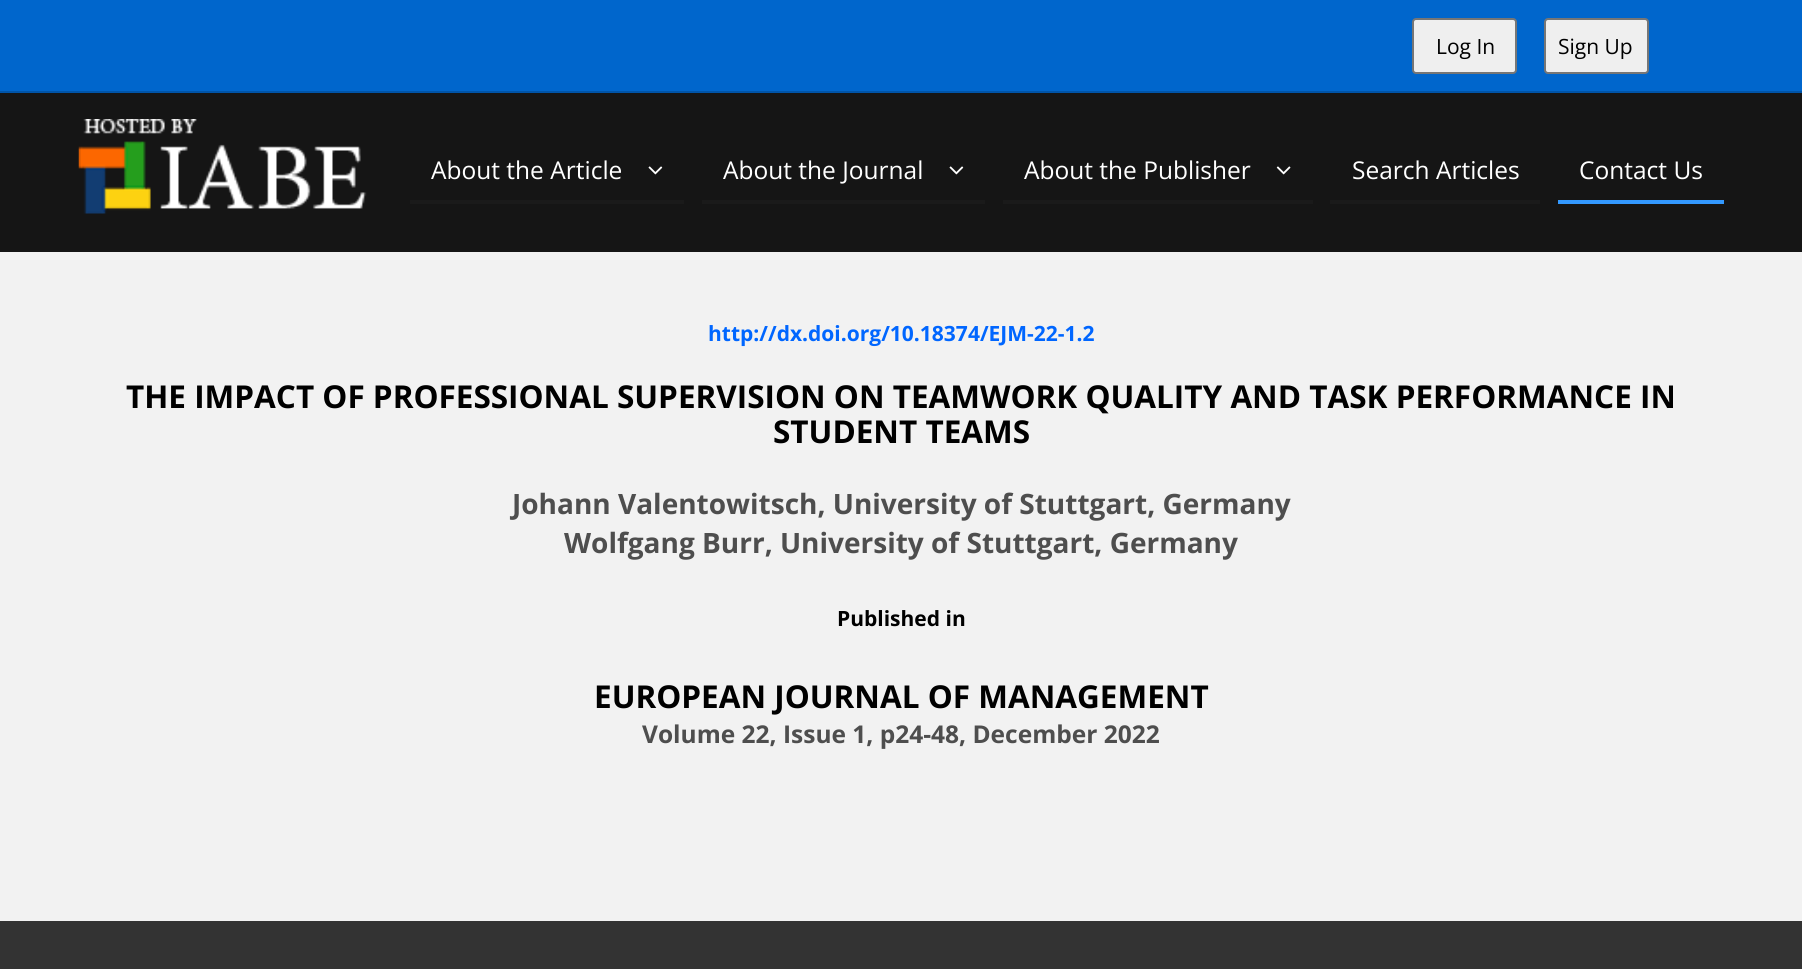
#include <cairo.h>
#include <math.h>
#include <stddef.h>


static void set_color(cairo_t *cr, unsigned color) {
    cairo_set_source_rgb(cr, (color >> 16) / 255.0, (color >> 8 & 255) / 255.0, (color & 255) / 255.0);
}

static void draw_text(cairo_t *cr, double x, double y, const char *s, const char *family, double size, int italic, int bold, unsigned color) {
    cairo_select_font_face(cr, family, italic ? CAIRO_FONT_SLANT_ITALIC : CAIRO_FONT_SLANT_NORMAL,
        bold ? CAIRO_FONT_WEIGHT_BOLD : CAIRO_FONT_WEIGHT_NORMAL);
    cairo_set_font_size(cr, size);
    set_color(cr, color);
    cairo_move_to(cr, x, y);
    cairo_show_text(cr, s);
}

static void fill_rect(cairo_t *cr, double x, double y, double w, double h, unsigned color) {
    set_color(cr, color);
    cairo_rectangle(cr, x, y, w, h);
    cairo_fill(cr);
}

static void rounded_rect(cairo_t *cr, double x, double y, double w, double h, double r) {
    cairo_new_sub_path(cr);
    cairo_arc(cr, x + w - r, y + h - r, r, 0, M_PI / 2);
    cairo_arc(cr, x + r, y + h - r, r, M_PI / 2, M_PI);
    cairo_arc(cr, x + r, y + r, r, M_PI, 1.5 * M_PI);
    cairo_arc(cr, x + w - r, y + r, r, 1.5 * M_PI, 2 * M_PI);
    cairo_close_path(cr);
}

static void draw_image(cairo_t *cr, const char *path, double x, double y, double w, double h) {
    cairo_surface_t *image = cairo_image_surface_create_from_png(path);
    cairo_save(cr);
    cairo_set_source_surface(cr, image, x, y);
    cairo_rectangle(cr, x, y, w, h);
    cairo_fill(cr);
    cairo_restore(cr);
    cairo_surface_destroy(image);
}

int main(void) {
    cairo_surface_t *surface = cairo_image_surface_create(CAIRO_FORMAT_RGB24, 1802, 969);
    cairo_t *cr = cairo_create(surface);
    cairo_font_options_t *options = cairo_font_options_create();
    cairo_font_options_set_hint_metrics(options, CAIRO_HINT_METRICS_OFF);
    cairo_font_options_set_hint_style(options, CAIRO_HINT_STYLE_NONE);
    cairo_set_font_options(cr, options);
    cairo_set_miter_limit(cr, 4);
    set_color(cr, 0x0066CC);
    cairo_paint(cr);
    fill_rect(cr, 0, 91, 1802, 2, 0x0054A8);
    set_color(cr, 0xEFEFEF);
    rounded_rect(cr, 1413, 19, 103, 54, 3);
    cairo_fill_preserve(cr);
    set_color(cr, 0x767676);
    cairo_stroke(cr);
    draw_text(cr, 1436, 54, "Log In", "Open Sans", 21, 0, 0, 0x000000);
    set_color(cr, 0xEFEFEF);
    rounded_rect(cr, 1545, 19, 103, 54, 3);
    cairo_fill_preserve(cr);
    set_color(cr, 0x767676);
    cairo_stroke(cr);
    draw_text(cr, 1558, 54, "Sign Up", "Open Sans", 21, 0, 0, 0x000000);
    fill_rect(cr, 0, 93, 1802, 159, 0x151515);
    draw_image(cr, "assets/img1.png", 78, 119, 289, 95);
    fill_rect(cr, 410, 200, 274, 4, 0x1A1A1A);
    draw_text(cr, 431, 179, "About the Article", "Open Sans", 24.5, 0, 0, 0xFFFFFF);
    draw_image(cr, "assets/img2.png", 648, 166, 15, 9);
    fill_rect(cr, 702, 200, 283, 4, 0x1A1A1A);
    draw_text(cr, 723, 179, "About the Journal", "Open Sans", 24.5, 0, 0, 0xFFFFFF);
    draw_image(cr, "assets/img2.png", 949, 166, 15, 9);
    fill_rect(cr, 1003, 200, 310, 4, 0x1A1A1A);
    draw_text(cr, 1024, 179, "About the Publisher", "Open Sans", 24.5, 0, 0, 0xFFFFFF);
    draw_image(cr, "assets/img3.png", 1276, 166, 15, 9);
    fill_rect(cr, 1330, 200, 210, 4, 0x1A1A1A);
    draw_text(cr, 1352, 179, "Search Articles", "Open Sans", 24.5, 0, 0, 0xFFFFFF);
    fill_rect(cr, 1558, 200, 166, 4, 0x3399FF);
    draw_text(cr, 1579, 179, "Contact Us", "Open Sans", 24.5, 0, 0, 0xFFFFFF);
    fill_rect(cr, 0, 252, 1802, 669, 0xF2F2F2);
    draw_text(cr, 708, 341, "http://dx.doi.org/10.18374/EJM-22-1.2", "Open Sans", 21, 0, 1, 0x0066FF);
    draw_text(cr, 126, 408, "THE IMPACT OF PROFESSIONAL SUPERVISION ON TEAMWORK QUALITY AND TASK PERFORMANCE IN", "Open Sans", 31.5, 0, 1, 0x000000);
    draw_text(cr, 773, 443, "STUDENT TEAMS", "Open Sans", 31.5, 0, 1, 0x000000);
    draw_text(cr, 512, 514, "Johann Valentowitsch, University of Stuttgart, Germany", "Open Sans", 28, 0, 1, 0x4E4E4E);
    draw_text(cr, 564, 553, "Wolfgang Burr, University of Stuttgart, Germany", "Open Sans", 28, 0, 1, 0x4E4E4E);
    draw_text(cr, 837, 626, "Published in", "Open Sans", 21, 0, 1, 0x000000);
    draw_text(cr, 594, 708, "EUROPEAN JOURNAL OF MANAGEMENT", "Open Sans", 31.5, 0, 1, 0x000000);
    draw_text(cr, 642, 743, "Volume 22, Issue 1, p24-48, December 2022", "Open Sans", 24.5, 0, 1, 0x4E4E4E);
    fill_rect(cr, 0, 921, 1802, 48, 0x333333);
    cairo_surface_write_to_png(surface, "output.png");
    cairo_font_options_destroy(options);
    cairo_destroy(cr);
    cairo_surface_destroy(surface);
    return 0;
}
